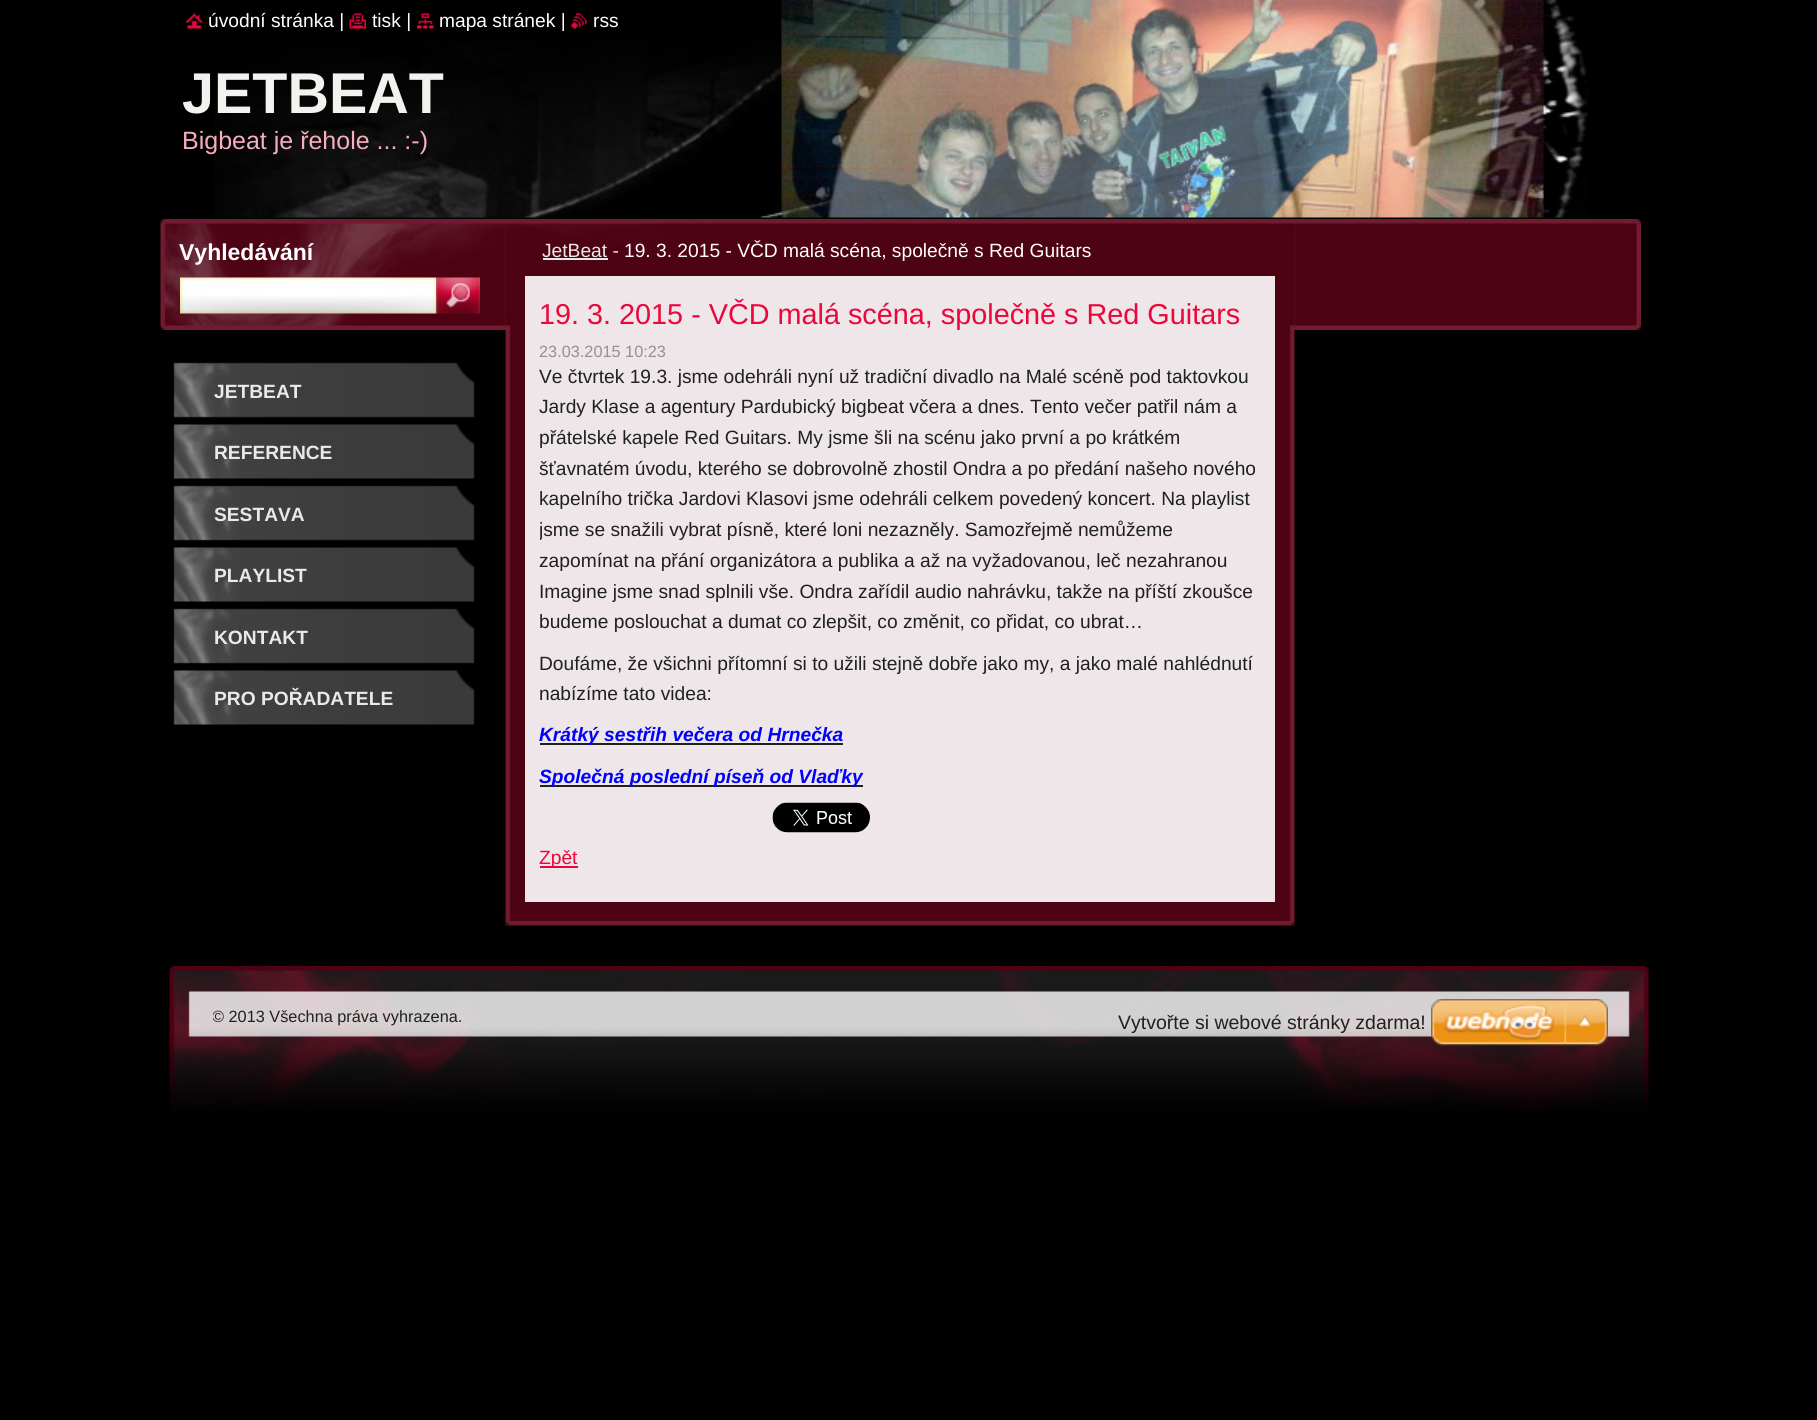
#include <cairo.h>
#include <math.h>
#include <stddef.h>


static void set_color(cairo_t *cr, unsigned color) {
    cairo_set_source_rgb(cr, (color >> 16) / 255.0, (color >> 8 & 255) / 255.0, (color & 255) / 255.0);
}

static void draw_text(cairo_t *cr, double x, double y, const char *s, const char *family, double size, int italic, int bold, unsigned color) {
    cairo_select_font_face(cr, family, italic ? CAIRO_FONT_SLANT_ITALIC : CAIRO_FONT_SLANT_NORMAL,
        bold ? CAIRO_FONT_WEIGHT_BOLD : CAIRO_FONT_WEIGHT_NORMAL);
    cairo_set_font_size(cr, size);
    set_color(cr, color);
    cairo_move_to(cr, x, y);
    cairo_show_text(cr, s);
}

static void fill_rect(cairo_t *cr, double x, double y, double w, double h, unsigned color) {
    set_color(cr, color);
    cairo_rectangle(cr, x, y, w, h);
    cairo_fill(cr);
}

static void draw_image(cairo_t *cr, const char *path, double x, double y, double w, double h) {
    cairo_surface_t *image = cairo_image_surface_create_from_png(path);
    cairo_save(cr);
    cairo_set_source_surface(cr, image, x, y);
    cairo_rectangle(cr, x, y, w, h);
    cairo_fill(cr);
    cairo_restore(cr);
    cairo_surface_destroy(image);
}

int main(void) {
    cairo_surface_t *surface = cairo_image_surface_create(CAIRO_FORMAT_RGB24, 1817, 1420);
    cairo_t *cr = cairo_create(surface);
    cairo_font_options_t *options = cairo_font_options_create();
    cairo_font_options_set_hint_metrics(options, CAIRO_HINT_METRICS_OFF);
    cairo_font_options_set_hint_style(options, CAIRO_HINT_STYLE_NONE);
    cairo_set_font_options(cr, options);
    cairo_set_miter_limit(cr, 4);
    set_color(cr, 0x000000);
    cairo_paint(cr);
    draw_image(cr, "assets/img1.png", 186, 13, 17, 16);
    draw_image(cr, "assets/img5.png", 214, 0, 1375, 218);
    draw_text(cr, 208, 27, "úvodní stránka |", "Liberation Sans", 19.2, 0, 0, 0xFFFFFF);
    draw_image(cr, "assets/img2.png", 349, 13, 17, 16);
    draw_text(cr, 372, 27, "tisk |", "Liberation Sans", 19.2, 0, 0, 0xFFFFFF);
    draw_image(cr, "assets/img3.png", 417, 13, 17, 16);
    draw_text(cr, 439, 27, "mapa stránek |", "Liberation Sans", 19.2, 0, 0, 0xFFFFFF);
    draw_image(cr, "assets/img4.png", 571, 13, 16, 16);
    draw_text(cr, 593, 27, "rss", "Liberation Sans", 19.2, 0, 0, 0xFFFFFF);
    draw_text(cr, 182, 113, "JETBEAT", "Liberation Sans", 57.5, 0, 1, 0xF3F2EF);
    draw_text(cr, 182, 149, "Bigbeat je řehole ... :-)", "Liberation Sans", 25, 0, 0, 0xF8ADBF);
    draw_image(cr, "assets/img6.png", 160, 219, 1481, 111);
    draw_text(cr, 179, 260, "Vyhledávání", "Liberation Sans", 23, 0, 1, 0xFFFFFF);
    draw_image(cr, "assets/img7.png", 180, 277, 257, 37);
    draw_image(cr, "assets/img8.png", 436, 277, 44, 37);
    draw_image(cr, "assets/img9.png", 505, 219, 790, 707);
    draw_image(cr, "assets/img10.png", 505, 219, 790, 108);
    draw_text(cr, 542, 257, "JetBeat -", "Liberation Sans", 19.2, 0, 0, 0xE9E9E9);
    fill_rect(cr, 543, 258, 65, 2, 0xE9E9E9);
    draw_text(cr, 624, 257, "19. 3. 2015 - VČD malá scéna, společně s Red Guitars", "Liberation Sans", 19.2, 0, 0, 0xFFFFFF);
    fill_rect(cr, 525, 276, 750, 626, 0xEEE6E8);
    draw_text(cr, 539, 324, "19. 3. 2015 - VČD malá scéna, společně s Red Guitars", "Liberation Sans", 28.8, 0, 0, 0xEB063C);
    draw_text(cr, 539, 357, "23.03.2015 10:23", "Liberation Sans", 16.3, 0, 0, 0x919192);
    draw_text(cr, 539, 383, "Ve čtvrtek 19.3. jsme odehráli nyní už tradiční divadlo na Malé scéně pod taktovkou", "Liberation Sans", 19.2, 0, 0, 0x1F221C);
    draw_text(cr, 539, 413, "Jardy Klase a agentury Pardubický bigbeat včera a dnes. Tento večer patřil nám a", "Liberation Sans", 19.2, 0, 0, 0x1F221C);
    draw_text(cr, 539, 444, "přátelské kapele Red Guitars. My jsme šli na scénu jako první a po krátkém", "Liberation Sans", 19.2, 0, 0, 0x1F221C);
    draw_text(cr, 539, 475, "šťavnatém úvodu, kterého se dobrovolně zhostil Ondra a po předání našeho nového", "Liberation Sans", 19.2, 0, 0, 0x1F221C);
    draw_text(cr, 539, 505, "kapelního trička Jardovi Klasovi jsme odehráli celkem povedený koncert. Na playlist", "Liberation Sans", 19.2, 0, 0, 0x1F221C);
    cairo_save(cr);
    cairo_rectangle(cr, 540, 339, 720, 530);
    cairo_clip(cr);
    draw_text(cr, 539, 536, "jsme se snažili vybrat písně, které loni nezazněly. Samozřejmě nemůžeme", "Liberation Sans", 19.2, 0, 0, 0x1F221C);
    cairo_restore(cr);
    draw_text(cr, 539, 567, "zapomínat na přání organizátora a publika a až na vyžadovanou, leč nezahranou", "Liberation Sans", 19.2, 0, 0, 0x1F221C);
    draw_text(cr, 539, 598, "Imagine jsme snad splnili vše. Ondra zařídil audio nahrávku, takže na příští zkoušce", "Liberation Sans", 19.2, 0, 0, 0x1F221C);
    draw_text(cr, 539, 628, "budeme poslouchat a dumat co zlepšit, co změnit, co přidat, co ubrat…", "Liberation Sans", 19.2, 0, 0, 0x1F221C);
    draw_text(cr, 539, 670, "Doufáme, že všichni přítomní si to užili stejně dobře jako my, a jako malé nahlédnutí", "Liberation Sans", 19.2, 0, 0, 0x1F221C);
    draw_text(cr, 539, 700, "nabízíme tato videa:", "Liberation Sans", 19.2, 0, 0, 0x1F221C);
    fill_rect(cr, 540, 743, 303, 2, 0x1F221C);
    draw_text(cr, 539, 741, "Krátký sestřih večera od Hrnečka", "Liberation Sans", 19.2, 1, 1, 0x0000FF);
    fill_rect(cr, 540, 785, 323, 2, 0x1F221C);
    draw_text(cr, 539, 783, "Společná poslední píseň od Vlaďky", "Liberation Sans", 19.2, 1, 1, 0x0000FF);
    draw_image(cr, "assets/img11.png", 772, 802, 98, 31);
    fill_rect(cr, 540, 866, 38, 2, 0xEB063C);
    draw_text(cr, 539, 864, "Zpět", "Liberation Sans", 19.2, 0, 0, 0xEB063C);
    draw_image(cr, "assets/img12.png", 505, 921, 790, 5);
    draw_image(cr, "assets/img13.png", 173, 362, 302, 56);
    draw_text(cr, 214, 398, "JETBEAT", "Liberation Sans", 19.2, 0, 1, 0xE9E9E9);
    draw_image(cr, "assets/img14.png", 173, 424, 302, 55);
    draw_text(cr, 214, 459, "REFERENCE", "Liberation Sans", 19.2, 0, 1, 0xE9E9E9);
    draw_image(cr, "assets/img13.png", 173, 485, 302, 56);
    draw_text(cr, 214, 521, "SESTAVA", "Liberation Sans", 19.2, 0, 1, 0xE9E9E9);
    draw_image(cr, "assets/img14.png", 173, 547, 302, 55);
    draw_text(cr, 214, 582, "PLAYLIST", "Liberation Sans", 19.2, 0, 1, 0xE9E9E9);
    draw_image(cr, "assets/img13.png", 173, 608, 302, 56);
    draw_text(cr, 214, 644, "KONTAKT", "Liberation Sans", 19.2, 0, 1, 0xE9E9E9);
    draw_image(cr, "assets/img14.png", 173, 670, 302, 55);
    draw_text(cr, 214, 705, "PRO POŘADATELE", "Liberation Sans", 19.2, 0, 1, 0xE9E9E9);
    draw_image(cr, "assets/img15.png", 169, 966, 1480, 146);
    cairo_save(cr);
    cairo_rectangle(cr, 213, 1005, 675, 24);
    cairo_clip(cr);
    draw_text(cr, 212, 1022, "© 2013 Všechna práva vyhrazena.", "Liberation Sans", 16.3, 0, 0, 0x1F221C);
    cairo_restore(cr);
    draw_text(cr, 1118, 1029, "Vytvořte si webové stránky zdarma!", "Liberation Sans", 19.5, 0, 0, 0x1F221C);
    draw_image(cr, "assets/img16.png", 1431, 999, 177, 47);
    cairo_surface_write_to_png(surface, "output.png");
    cairo_font_options_destroy(options);
    cairo_destroy(cr);
    cairo_surface_destroy(surface);
    return 0;
}
